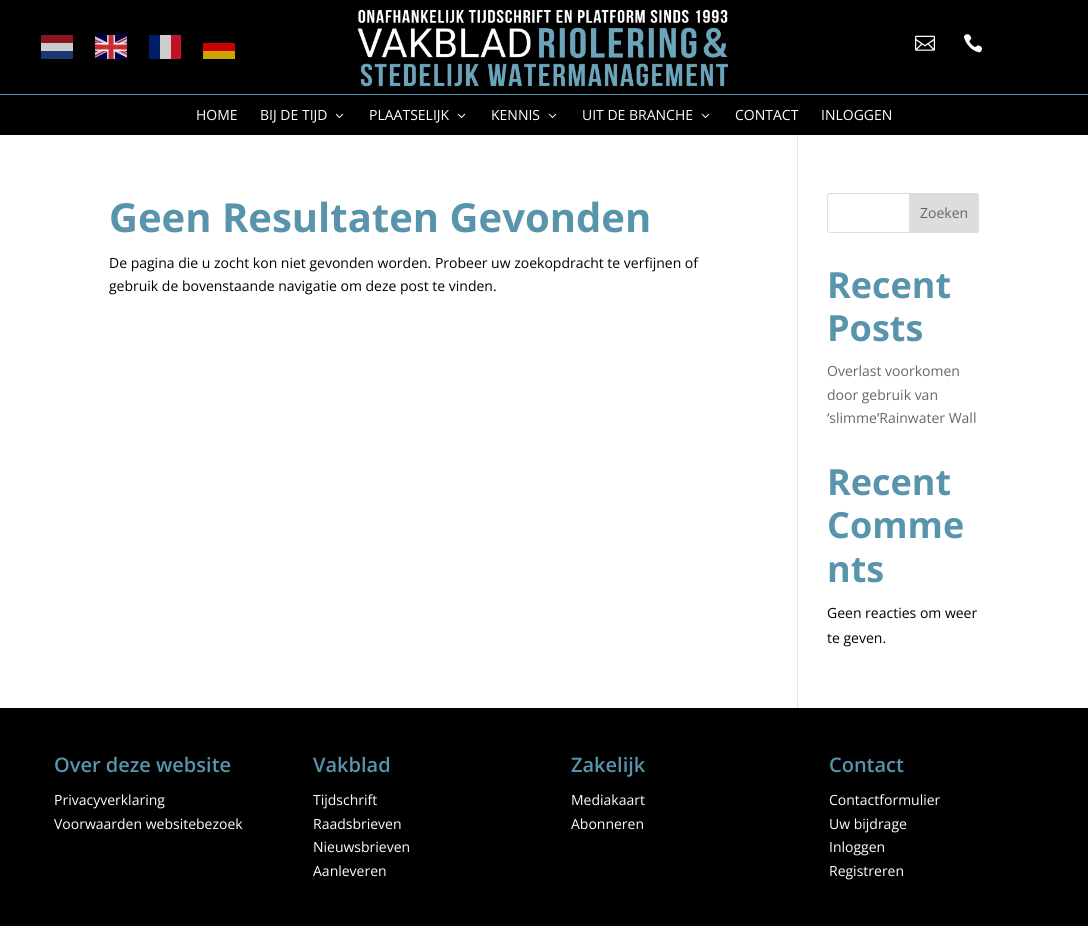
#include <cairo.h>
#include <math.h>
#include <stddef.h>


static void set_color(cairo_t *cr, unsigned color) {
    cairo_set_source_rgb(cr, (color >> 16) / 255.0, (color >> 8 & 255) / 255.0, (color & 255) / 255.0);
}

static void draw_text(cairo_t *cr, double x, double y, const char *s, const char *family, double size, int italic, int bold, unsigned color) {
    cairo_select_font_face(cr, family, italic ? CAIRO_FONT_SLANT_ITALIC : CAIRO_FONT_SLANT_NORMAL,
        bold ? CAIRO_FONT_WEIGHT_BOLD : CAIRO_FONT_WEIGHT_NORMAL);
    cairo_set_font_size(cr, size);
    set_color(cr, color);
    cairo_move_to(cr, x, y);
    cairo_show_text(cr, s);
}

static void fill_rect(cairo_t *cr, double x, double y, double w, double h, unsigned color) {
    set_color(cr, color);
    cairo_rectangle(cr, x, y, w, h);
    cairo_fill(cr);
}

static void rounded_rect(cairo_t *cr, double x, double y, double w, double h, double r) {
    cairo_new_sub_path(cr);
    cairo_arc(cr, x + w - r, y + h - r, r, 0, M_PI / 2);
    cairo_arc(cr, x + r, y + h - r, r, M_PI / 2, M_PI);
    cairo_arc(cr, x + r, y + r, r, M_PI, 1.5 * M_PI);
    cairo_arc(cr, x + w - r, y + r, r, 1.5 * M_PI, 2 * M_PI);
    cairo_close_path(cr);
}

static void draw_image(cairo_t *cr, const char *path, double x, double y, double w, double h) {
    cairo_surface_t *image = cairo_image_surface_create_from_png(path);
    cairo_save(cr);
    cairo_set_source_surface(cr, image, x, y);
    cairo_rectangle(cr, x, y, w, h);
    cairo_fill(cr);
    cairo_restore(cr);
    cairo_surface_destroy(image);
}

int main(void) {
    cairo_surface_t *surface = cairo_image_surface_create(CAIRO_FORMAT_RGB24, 1088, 944);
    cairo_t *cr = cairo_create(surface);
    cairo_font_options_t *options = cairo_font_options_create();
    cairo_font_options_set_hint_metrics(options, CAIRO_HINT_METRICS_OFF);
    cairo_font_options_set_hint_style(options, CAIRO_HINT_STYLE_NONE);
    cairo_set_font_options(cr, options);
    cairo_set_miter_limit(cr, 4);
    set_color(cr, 0xFFFFFF);
    cairo_paint(cr);
    fill_rect(cr, 0, 0, 1088, 135, 0x000000);
    fill_rect(cr, 41, 35, 32, 8, 0x8B1620);
    draw_image(cr, "assets/img1.png", 95, 35, 32, 24);
    fill_rect(cr, 149, 35, 11, 24, 0x001E66);
    fill_rect(cr, 160, 35, 11, 24, 0xCCCCCC);
    fill_rect(cr, 171, 35, 10, 24, 0xC21326);
    fill_rect(cr, 41, 43, 32, 8, 0xCCCCCC);
    fill_rect(cr, 203, 43, 32, 8, 0xCC0000);
    fill_rect(cr, 41, 51, 32, 8, 0x1A386F);
    fill_rect(cr, 203, 51, 32, 8, 0xCCA300);
    draw_image(cr, "assets/img2.png", 357, 9, 372, 78);
    draw_image(cr, "assets/img3.png", 915, 35, 20, 16);
    draw_image(cr, "assets/img4.png", 963, 34, 20, 19);
    fill_rect(cr, 0, 94, 1088, 1, 0x5894AB);
    draw_text(cr, 196, 120, "HOME", "Open Sans", 14, 0, 0, 0xFFFFFF);
    draw_text(cr, 260, 120, "BIJ DE TIJD", "Open Sans", 14, 0, 0, 0xFFFFFF);
    draw_image(cr, "assets/img5.png", 335, 113, 9, 5);
    draw_text(cr, 369, 120, "PLAATSELIJK", "Open Sans", 14, 0, 0, 0xFFFFFF);
    draw_image(cr, "assets/img5.png", 457, 113, 9, 5);
    draw_text(cr, 491, 120, "KENNIS", "Open Sans", 14, 0, 0, 0xFFFFFF);
    draw_image(cr, "assets/img5.png", 548, 113, 9, 5);
    draw_text(cr, 582, 120, "UIT DE BRANCHE", "Open Sans", 14, 0, 0, 0xFFFFFF);
    draw_image(cr, "assets/img5.png", 701, 113, 9, 5);
    draw_text(cr, 735, 120, "CONTACT", "Open Sans", 14, 0, 0, 0xFFFFFF);
    draw_text(cr, 821, 120, "INLOGGEN", "Open Sans", 14, 0, 0, 0xFFFFFF);
    fill_rect(cr, 797, 135, 1, 573, 0xE2E2E2);
    draw_text(cr, 109, 232, "Geen Resultaten Gevonden", "Open Sans", 40, 0, 1, 0x5894AB);
    draw_text(cr, 109, 268, "De pagina die u zocht kon niet gevonden worden. Probeer uw zoekopdracht te verfijnen of", "Open Sans", 14, 0, 0, 0x000000);
    draw_text(cr, 109, 291, "gebruik de bovenstaande navigatie om deze post te vinden.", "Open Sans", 14, 0, 0, 0x000000);
    rounded_rect(cr, 827.5, 193.5, 151, 39, 2.5);
    set_color(cr, 0xDDDDDD);
    cairo_set_line_width(cr, 1);
    cairo_stroke(cr);
    cairo_new_path(cr);
    cairo_move_to(cr, 909.5, 193.5);
    cairo_line_to(cr, 976, 193.5);
    cairo_curve_to(cr, 977.5, 193.5, 978.5, 194.5, 978.5, 196);
    cairo_line_to(cr, 978.5, 230);
    cairo_curve_to(cr, 978.5, 231.5, 977.5, 232.5, 976, 232.5);
    cairo_line_to(cr, 909.5, 232.5);
    cairo_close_path(cr);
    cairo_fill_preserve(cr);
    cairo_stroke(cr);
    draw_text(cr, 920, 218, "Zoeken", "Open Sans", 14, 0, 0, 0x666666);
    draw_text(cr, 827, 298, "Recent", "Open Sans", 36, 0, 1, 0x5894AB);
    draw_text(cr, 827, 341, "Posts", "Open Sans", 36, 0, 1, 0x5894AB);
    draw_text(cr, 827, 376, "Overlast voorkomen", "Open Sans", 14, 0, 0, 0x666666);
    draw_text(cr, 827, 400, "door gebruik van", "Open Sans", 14, 0, 0, 0x666666);
    draw_text(cr, 827, 423, "‘slimme’Rainwater Wall", "Open Sans", 14, 0, 0, 0x666666);
    draw_text(cr, 827, 495, "Recent", "Open Sans", 36, 0, 1, 0x5894AB);
    draw_text(cr, 827, 538, "Comme", "Open Sans", 36, 0, 1, 0x5894AB);
    draw_text(cr, 827, 582, "nts", "Open Sans", 36, 0, 1, 0x5894AB);
    draw_text(cr, 827, 618, "Geen reacties om weer", "Open Sans", 14, 0, 0, 0x000000);
    draw_text(cr, 827, 643, "te geven.", "Open Sans", 14, 0, 0, 0x000000);
    fill_rect(cr, 0, 708, 1088, 218, 0x000000);
    draw_text(cr, 54, 772, "Over deze website", "Open Sans SemiBold", 20, 0, 0, 0x5894AB);
    draw_text(cr, 54, 805, "Privacyverklaring", "Open Sans", 14, 0, 0, 0xFFFFFF);
    draw_text(cr, 54, 829, "Voorwaarden websitebezoek", "Open Sans", 14, 0, 0, 0xFFFFFF);
    draw_text(cr, 313, 772, "Vakblad", "Open Sans SemiBold", 20, 0, 0, 0x5894AB);
    draw_text(cr, 313, 805, "Tijdschrift", "Open Sans", 14, 0, 0, 0xFFFFFF);
    draw_text(cr, 313, 829, "Raadsbrieven", "Open Sans", 14, 0, 0, 0xFFFFFF);
    draw_text(cr, 313, 852, "Nieuwsbrieven", "Open Sans", 14, 0, 0, 0xFFFFFF);
    draw_text(cr, 313, 876, "Aanleveren", "Open Sans", 14, 0, 0, 0xFFFFFF);
    draw_text(cr, 571, 772, "Zakelijk", "Open Sans SemiBold", 20, 0, 0, 0x5894AB);
    draw_text(cr, 571, 805, "Mediakaart", "Open Sans", 14, 0, 0, 0xFFFFFF);
    draw_text(cr, 571, 829, "Abonneren", "Open Sans", 14, 0, 0, 0xFFFFFF);
    draw_text(cr, 829, 772, "Contact", "Open Sans SemiBold", 20, 0, 0, 0x5894AB);
    draw_text(cr, 829, 805, "Contactformulier", "Open Sans", 14, 0, 0, 0xFFFFFF);
    draw_text(cr, 829, 829, "Uw bijdrage", "Open Sans", 14, 0, 0, 0xFFFFFF);
    draw_text(cr, 829, 852, "Inloggen", "Open Sans", 14, 0, 0, 0xFFFFFF);
    draw_text(cr, 829, 876, "Registreren", "Open Sans", 14, 0, 0, 0xFFFFFF);
    cairo_surface_write_to_png(surface, "output.png");
    cairo_font_options_destroy(options);
    cairo_destroy(cr);
    cairo_surface_destroy(surface);
    return 0;
}
